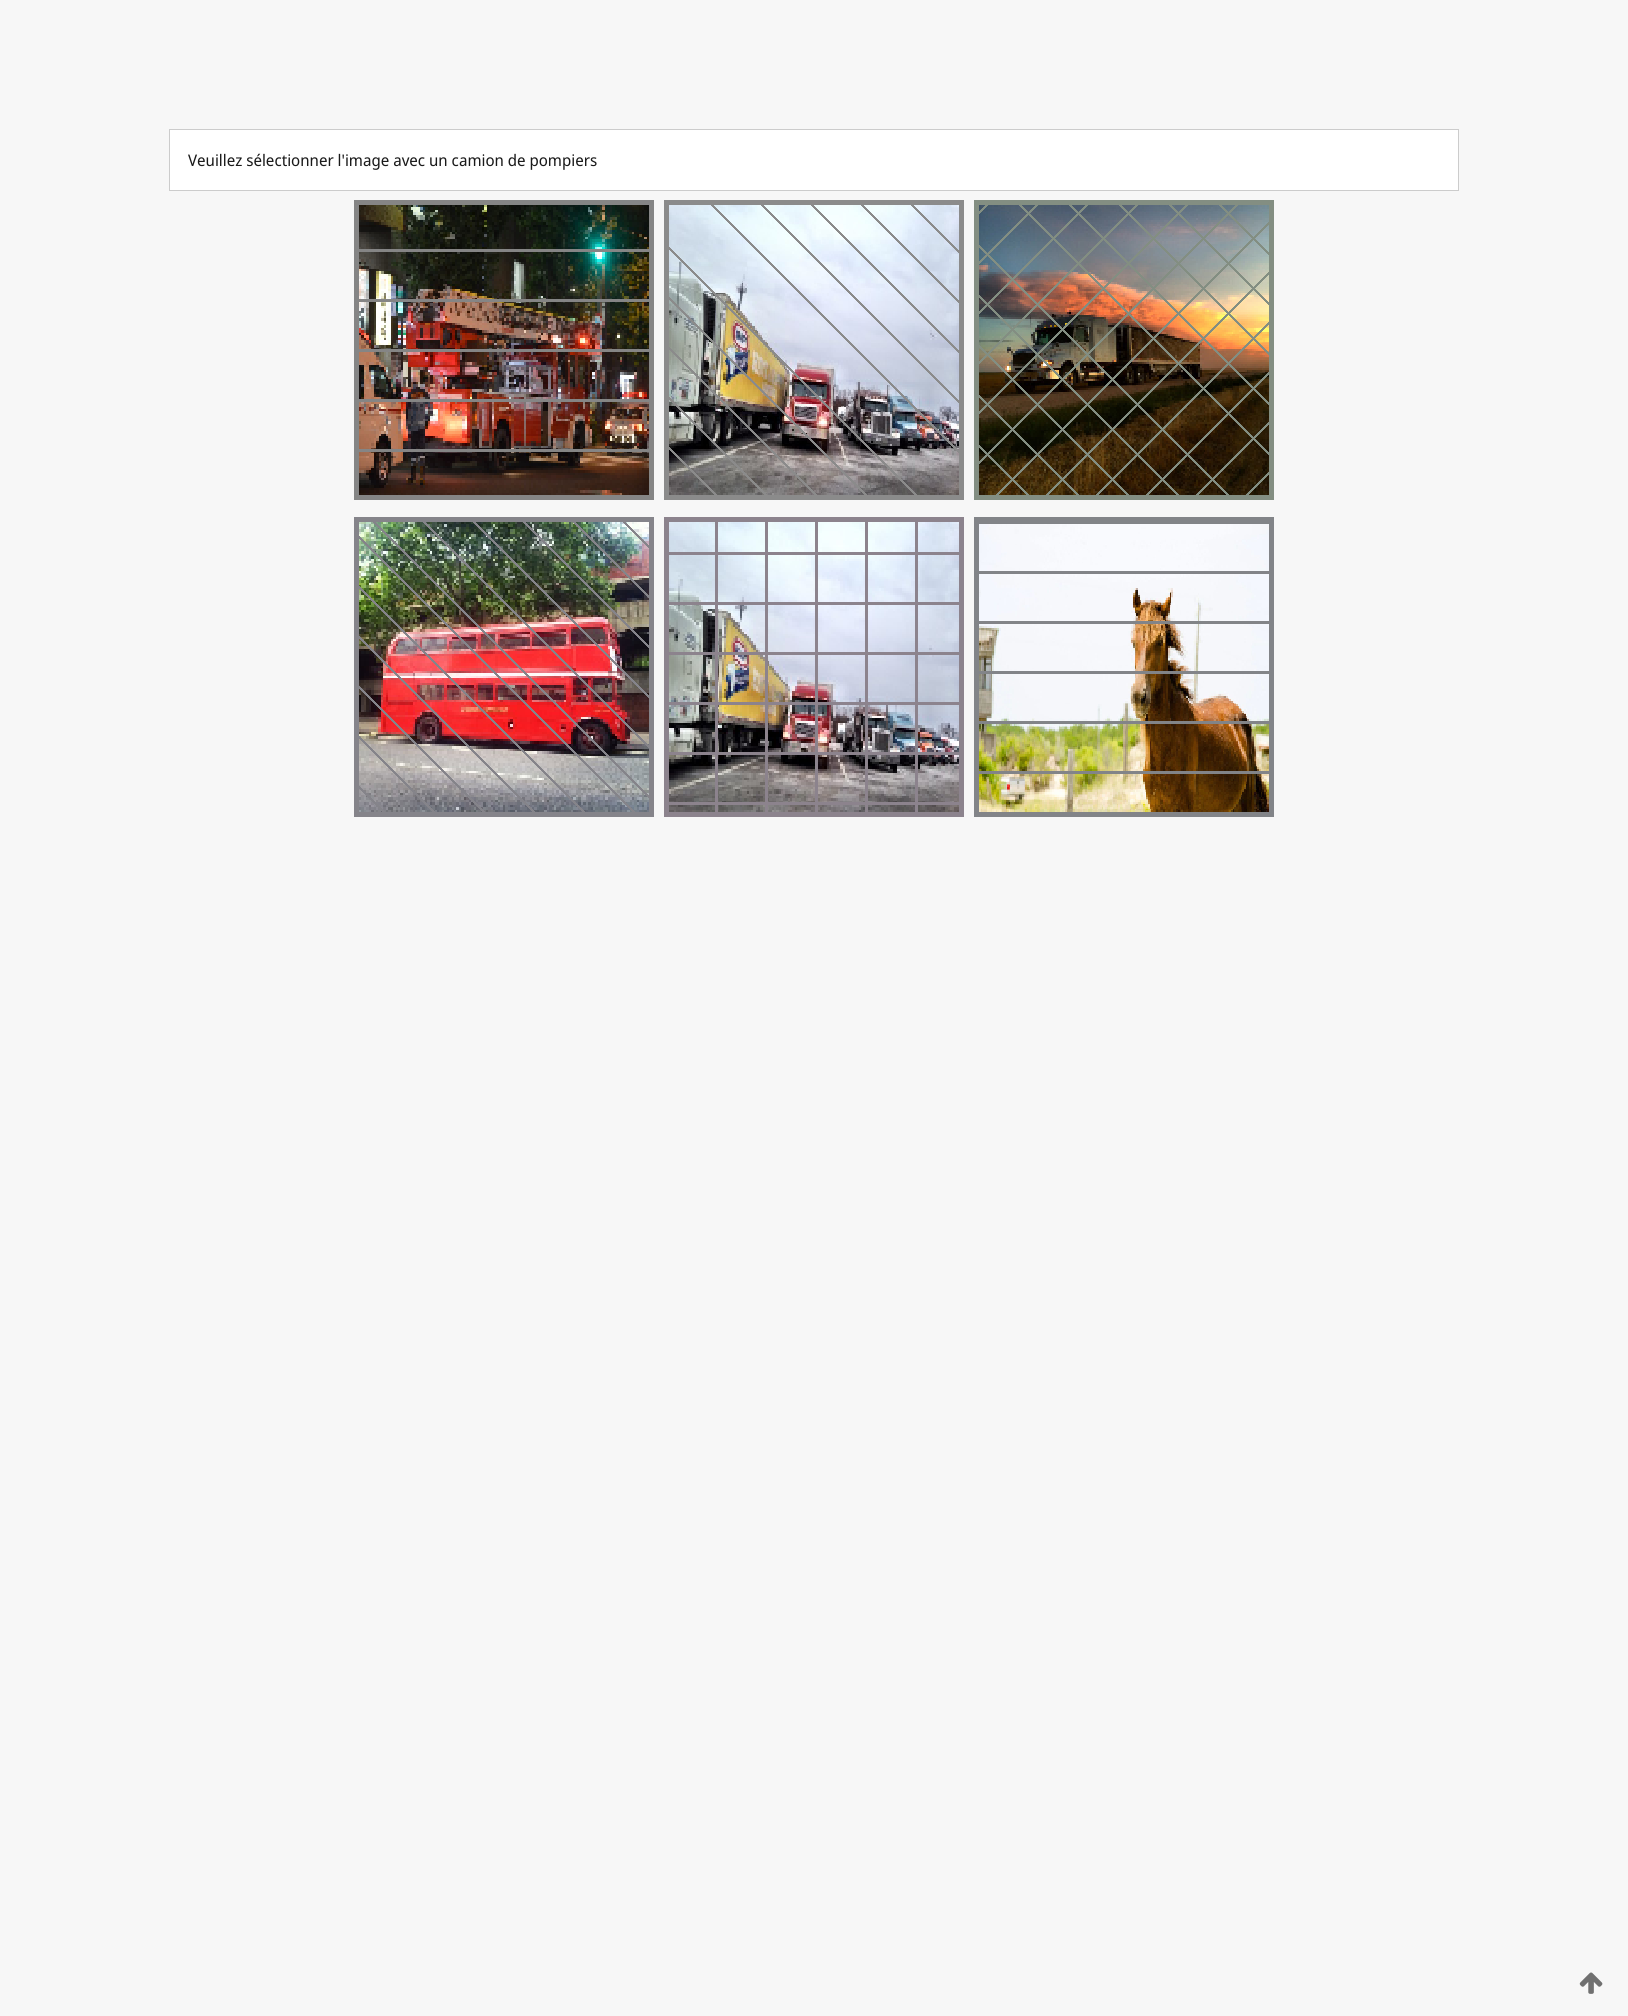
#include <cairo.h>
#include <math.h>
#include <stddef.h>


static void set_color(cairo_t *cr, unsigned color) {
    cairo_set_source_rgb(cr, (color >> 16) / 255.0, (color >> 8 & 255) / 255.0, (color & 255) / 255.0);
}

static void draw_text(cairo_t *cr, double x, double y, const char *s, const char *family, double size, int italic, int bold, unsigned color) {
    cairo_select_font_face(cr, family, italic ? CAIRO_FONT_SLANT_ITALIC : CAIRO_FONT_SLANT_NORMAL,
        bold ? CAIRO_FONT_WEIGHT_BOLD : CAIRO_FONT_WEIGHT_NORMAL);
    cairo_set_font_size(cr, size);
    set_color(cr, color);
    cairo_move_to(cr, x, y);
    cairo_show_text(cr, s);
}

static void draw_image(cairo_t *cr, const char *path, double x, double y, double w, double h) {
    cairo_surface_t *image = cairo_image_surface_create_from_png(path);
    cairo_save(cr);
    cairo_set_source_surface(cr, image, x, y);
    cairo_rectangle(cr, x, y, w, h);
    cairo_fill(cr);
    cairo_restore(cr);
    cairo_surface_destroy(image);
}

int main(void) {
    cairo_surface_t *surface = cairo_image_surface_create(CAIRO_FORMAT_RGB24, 1628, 2016);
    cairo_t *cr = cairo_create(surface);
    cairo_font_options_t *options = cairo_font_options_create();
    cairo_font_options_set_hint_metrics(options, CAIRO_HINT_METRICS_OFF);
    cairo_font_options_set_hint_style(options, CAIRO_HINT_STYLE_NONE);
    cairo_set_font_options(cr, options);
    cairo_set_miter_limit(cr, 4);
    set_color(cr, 0xF7F7F7);
    cairo_paint(cr);
    set_color(cr, 0xFFFFFF);
    cairo_rectangle(cr, 169.5, 129.5, 1289, 61);
    cairo_fill_preserve(cr);
    set_color(cr, 0xCCCCCC);
    cairo_set_line_width(cr, 1);
    cairo_stroke(cr);
    draw_text(cr, 188, 166, "Veuillez sélectionner l'image avec un camion de pompiers", "Noto Sans Display", 16, 0, 0, 0x1A1A1A);
    draw_image(cr, "assets/img1.png", 354, 200, 300, 300);
    draw_image(cr, "assets/img2.png", 664, 200, 300, 300);
    draw_image(cr, "assets/img3.png", 974, 200, 300, 300);
    draw_image(cr, "assets/img4.png", 354, 517, 300, 300);
    draw_image(cr, "assets/img5.png", 664, 517, 300, 300);
    draw_image(cr, "assets/img6.png", 974, 517, 300, 300);
    draw_image(cr, "assets/img7.png", 1579, 1972, 24, 22);
    cairo_surface_write_to_png(surface, "output.png");
    cairo_font_options_destroy(options);
    cairo_destroy(cr);
    cairo_surface_destroy(surface);
    return 0;
}
